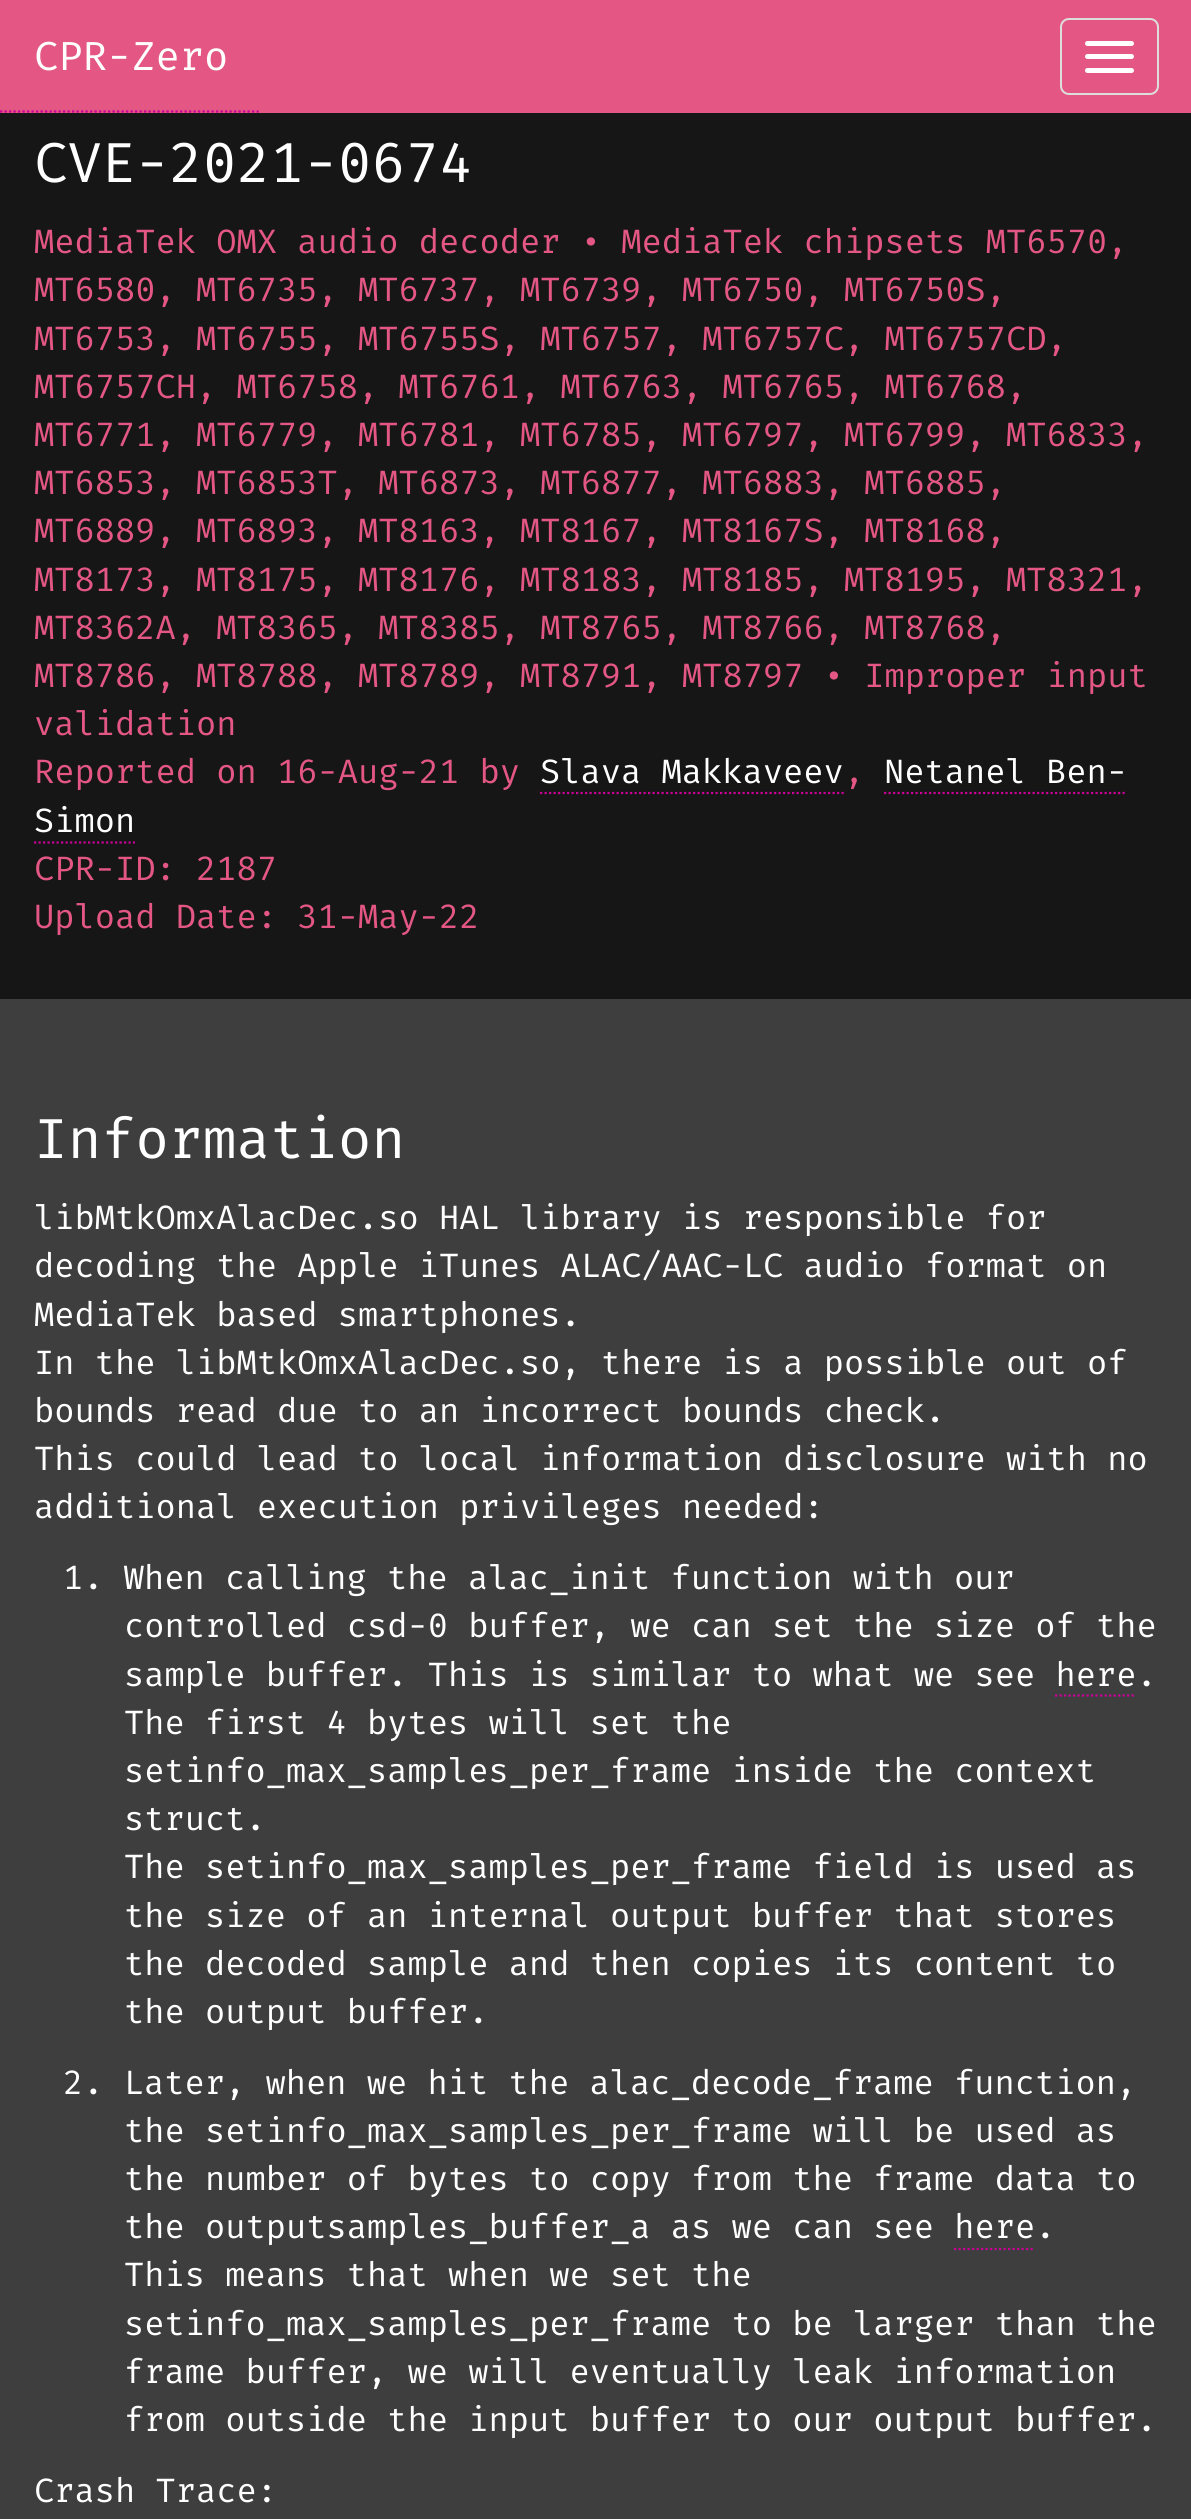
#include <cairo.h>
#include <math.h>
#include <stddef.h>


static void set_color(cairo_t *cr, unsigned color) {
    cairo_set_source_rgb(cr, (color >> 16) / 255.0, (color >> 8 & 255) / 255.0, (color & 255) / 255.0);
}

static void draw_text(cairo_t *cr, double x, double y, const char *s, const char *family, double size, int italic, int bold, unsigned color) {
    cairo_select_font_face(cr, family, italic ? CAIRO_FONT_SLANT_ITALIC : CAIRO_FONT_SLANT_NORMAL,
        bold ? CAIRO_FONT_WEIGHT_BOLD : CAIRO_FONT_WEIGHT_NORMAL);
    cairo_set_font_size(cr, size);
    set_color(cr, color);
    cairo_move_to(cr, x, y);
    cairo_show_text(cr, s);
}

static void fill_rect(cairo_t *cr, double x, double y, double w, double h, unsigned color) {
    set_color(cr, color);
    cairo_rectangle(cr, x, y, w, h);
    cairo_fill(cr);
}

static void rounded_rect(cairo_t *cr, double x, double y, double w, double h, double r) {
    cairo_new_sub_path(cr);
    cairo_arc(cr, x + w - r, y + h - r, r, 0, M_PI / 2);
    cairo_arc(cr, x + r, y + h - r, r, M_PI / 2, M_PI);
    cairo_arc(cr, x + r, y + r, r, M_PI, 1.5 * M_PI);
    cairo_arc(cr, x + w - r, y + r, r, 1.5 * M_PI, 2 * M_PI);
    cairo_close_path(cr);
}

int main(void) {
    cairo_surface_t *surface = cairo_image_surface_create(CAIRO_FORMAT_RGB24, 1191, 2519);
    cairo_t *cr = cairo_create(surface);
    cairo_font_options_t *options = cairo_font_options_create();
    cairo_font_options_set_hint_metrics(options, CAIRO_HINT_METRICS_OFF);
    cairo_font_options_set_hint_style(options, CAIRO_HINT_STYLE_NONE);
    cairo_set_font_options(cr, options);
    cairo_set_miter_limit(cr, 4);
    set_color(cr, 0x3E3E3E);
    cairo_paint(cr);
    fill_rect(cr, 0, 0, 1191, 113, 0xE45785);
    cairo_new_path(cr);
    cairo_move_to(cr, 0, 111.5);
    cairo_line_to(cr, 261, 111.5);
    set_color(cr, 0xCA0098);
    cairo_set_line_width(cr, 2.2);
    cairo_set_dash(cr, (double[]){2.25, 2.25}, 2, 0);
    cairo_stroke(cr);
    draw_text(cr, 34, 70, "CPR-Zero", "Fira Mono", 40.5, 0, 0, 0xFFFFFF);
    rounded_rect(cr, 1061, 19, 97, 75, 8);
    set_color(cr, 0xDDDDDD);
    cairo_set_line_width(cr, 2);
    cairo_set_dash(cr, NULL, 0, 0);
    cairo_stroke(cr);
    set_color(cr, 0xFFFFFF);
    rounded_rect(cr, 1085, 41, 49, 5, 2.5);
    cairo_fill(cr);
    rounded_rect(cr, 1085, 54, 49, 5, 2.5);
    cairo_fill(cr);
    rounded_rect(cr, 1085, 68, 49, 5, 2.5);
    cairo_fill(cr);
    fill_rect(cr, 0, 113, 1191, 886, 0x161616);
    draw_text(cr, 34, 182, "CVE-2021-0674", "Fira Mono", 56.25, 0, 0, 0xFFFFFF);
    draw_text(cr, 34, 253, "MediaTek OMX audio decoder • MediaTek chipsets MT6570,", "Fira Mono", 33.75, 0, 0, 0xE45785);
    draw_text(cr, 34, 301, "MT6580, MT6735, MT6737, MT6739, MT6750, MT6750S,", "Fira Mono", 33.75, 0, 0, 0xE45785);
    draw_text(cr, 34, 350, "MT6753, MT6755, MT6755S, MT6757, MT6757C, MT6757CD,", "Fira Mono", 33.75, 0, 0, 0xE45785);
    draw_text(cr, 34, 398, "MT6757CH, MT6758, MT6761, MT6763, MT6765, MT6768,", "Fira Mono", 33.75, 0, 0, 0xE45785);
    draw_text(cr, 34, 446, "MT6771, MT6779, MT6781, MT6785, MT6797, MT6799, MT6833,", "Fira Mono", 33.75, 0, 0, 0xE45785);
    draw_text(cr, 34, 494, "MT6853, MT6853T, MT6873, MT6877, MT6883, MT6885,", "Fira Mono", 33.75, 0, 0, 0xE45785);
    draw_text(cr, 34, 542, "MT6889, MT6893, MT8163, MT8167, MT8167S, MT8168,", "Fira Mono", 33.75, 0, 0, 0xE45785);
    draw_text(cr, 34, 591, "MT8173, MT8175, MT8176, MT8183, MT8185, MT8195, MT8321,", "Fira Mono", 33.75, 0, 0, 0xE45785);
    draw_text(cr, 34, 639, "MT8362A, MT8365, MT8385, MT8765, MT8766, MT8768,", "Fira Mono", 33.75, 0, 0, 0xE45785);
    draw_text(cr, 34, 687, "MT8786, MT8788, MT8789, MT8791, MT8797 • Improper input", "Fira Mono", 33.75, 0, 0, 0xE45785);
    draw_text(cr, 34, 735, "validation", "Fira Mono", 33.75, 0, 0, 0xE45785);
    draw_text(cr, 34, 783, "Reported on 16-Aug-21 by", "Fira Mono", 33.75, 0, 0, 0xE45785);
    draw_text(cr, 540, 783, "Slava Makkaveev", "Fira Mono", 33.75, 0, 0, 0xFFFFFF);
    draw_text(cr, 844, 783, ",", "Fira Mono", 33.75, 0, 0, 0xE45785);
    cairo_new_path(cr);
    cairo_move_to(cr, 540, 793);
    cairo_line_to(cr, 844, 793);
    set_color(cr, 0xCA0098);
    cairo_set_line_width(cr, 2.2);
    cairo_set_dash(cr, (double[]){2.25, 2.25}, 2, 0);
    cairo_stroke(cr);
    draw_text(cr, 884, 783, "Netanel Ben-", "Fira Mono", 33.75, 0, 0, 0xFFFFFF);
    cairo_new_path(cr);
    cairo_move_to(cr, 884, 793);
    cairo_line_to(cr, 1127, 793);
    set_color(cr, 0xCA0098);
    cairo_stroke(cr);
    draw_text(cr, 34, 832, "Simon", "Fira Mono", 33.75, 0, 0, 0xFFFFFF);
    cairo_new_path(cr);
    cairo_move_to(cr, 34, 842.5);
    cairo_line_to(cr, 135, 842.5);
    set_color(cr, 0xCA0098);
    cairo_stroke(cr);
    draw_text(cr, 34, 880, "CPR-ID: 2187", "Fira Mono", 33.75, 0, 0, 0xE45785);
    draw_text(cr, 34, 928, "Upload Date: 31-May-22", "Fira Mono", 33.75, 0, 0, 0xE45785);
    draw_text(cr, 34, 1158, "Information", "Fira Mono", 56.25, 0, 0, 0xFFFFFF);
    draw_text(cr, 34, 1229, "libMtkOmxAlacDec.so HAL library is responsible for", "Fira Mono", 33.75, 0, 0, 0xFFFFFF);
    draw_text(cr, 34, 1277, "decoding the Apple iTunes ALAC/AAC-LC audio format on", "Fira Mono", 33.75, 0, 0, 0xFFFFFF);
    draw_text(cr, 34, 1326, "MediaTek based smartphones.", "Fira Mono", 33.75, 0, 0, 0xFFFFFF);
    draw_text(cr, 34, 1374, "In the libMtkOmxAlacDec.so, there is a possible out of", "Fira Mono", 33.75, 0, 0, 0xFFFFFF);
    draw_text(cr, 34, 1422, "bounds read due to an incorrect bounds check.", "Fira Mono", 33.75, 0, 0, 0xFFFFFF);
    draw_text(cr, 34, 1470, "This could lead to local information disclosure with no", "Fira Mono", 33.75, 0, 0, 0xFFFFFF);
    draw_text(cr, 34, 1518, "additional execution privileges needed:", "Fira Mono", 33.75, 0, 0, 0xFFFFFF);
    draw_text(cr, 63, 1589, "1. When calling the alac_init function with our", "Fira Mono", 33.75, 0, 0, 0xFFFFFF);
    draw_text(cr, 124, 1637, "controlled csd-0 buffer, we can set the size of the", "Fira Mono", 33.75, 0, 0, 0xFFFFFF);
    draw_text(cr, 124, 1686, "sample buffer. This is similar to what we see here.", "Fira Mono", 33.75, 0, 0, 0xFFFFFF);
    cairo_new_path(cr);
    cairo_move_to(cr, 1055, 1695.5);
    cairo_line_to(cr, 1136, 1695.5);
    set_color(cr, 0xCA0098);
    cairo_stroke(cr);
    draw_text(cr, 124, 1734, "The first 4 bytes will set the", "Fira Mono", 33.75, 0, 0, 0xFFFFFF);
    draw_text(cr, 124, 1782, "setinfo_max_samples_per_frame inside the context", "Fira Mono", 33.75, 0, 0, 0xFFFFFF);
    draw_text(cr, 124, 1830, "struct.", "Fira Mono", 33.75, 0, 0, 0xFFFFFF);
    draw_text(cr, 124, 1878, "The setinfo_max_samples_per_frame field is used as", "Fira Mono", 33.75, 0, 0, 0xFFFFFF);
    draw_text(cr, 124, 1927, "the size of an internal output buffer that stores", "Fira Mono", 33.75, 0, 0, 0xFFFFFF);
    draw_text(cr, 124, 1975, "the decoded sample and then copies its content to", "Fira Mono", 33.75, 0, 0, 0xFFFFFF);
    draw_text(cr, 124, 2023, "the output buffer.", "Fira Mono", 33.75, 0, 0, 0xFFFFFF);
    draw_text(cr, 63, 2094, "2. Later, when we hit the alac_decode_frame function,", "Fira Mono", 33.75, 0, 0, 0xFFFFFF);
    draw_text(cr, 124, 2142, "the setinfo_max_samples_per_frame will be used as", "Fira Mono", 33.75, 0, 0, 0xFFFFFF);
    draw_text(cr, 124, 2190, "the number of bytes to copy from the frame data to", "Fira Mono", 33.75, 0, 0, 0xFFFFFF);
    draw_text(cr, 124, 2238, "the outputsamples_buffer_a as we can see here.", "Fira Mono", 33.75, 0, 0, 0xFFFFFF);
    cairo_new_path(cr);
    cairo_move_to(cr, 954, 2249);
    cairo_line_to(cr, 1035, 2249);
    set_color(cr, 0xCA0098);
    cairo_stroke(cr);
    draw_text(cr, 124, 2286, "This means that when we set the", "Fira Mono", 33.75, 0, 0, 0xFFFFFF);
    draw_text(cr, 124, 2335, "setinfo_max_samples_per_frame to be larger than the", "Fira Mono", 33.75, 0, 0, 0xFFFFFF);
    draw_text(cr, 124, 2383, "frame buffer, we will eventually leak information", "Fira Mono", 33.75, 0, 0, 0xFFFFFF);
    draw_text(cr, 124, 2431, "from outside the input buffer to our output buffer.", "Fira Mono", 33.75, 0, 0, 0xFFFFFF);
    draw_text(cr, 34, 2502, "Crash Trace:", "Fira Mono", 33.75, 0, 0, 0xFFFFFF);
    cairo_surface_write_to_png(surface, "output.png");
    cairo_font_options_destroy(options);
    cairo_destroy(cr);
    cairo_surface_destroy(surface);
    return 0;
}
